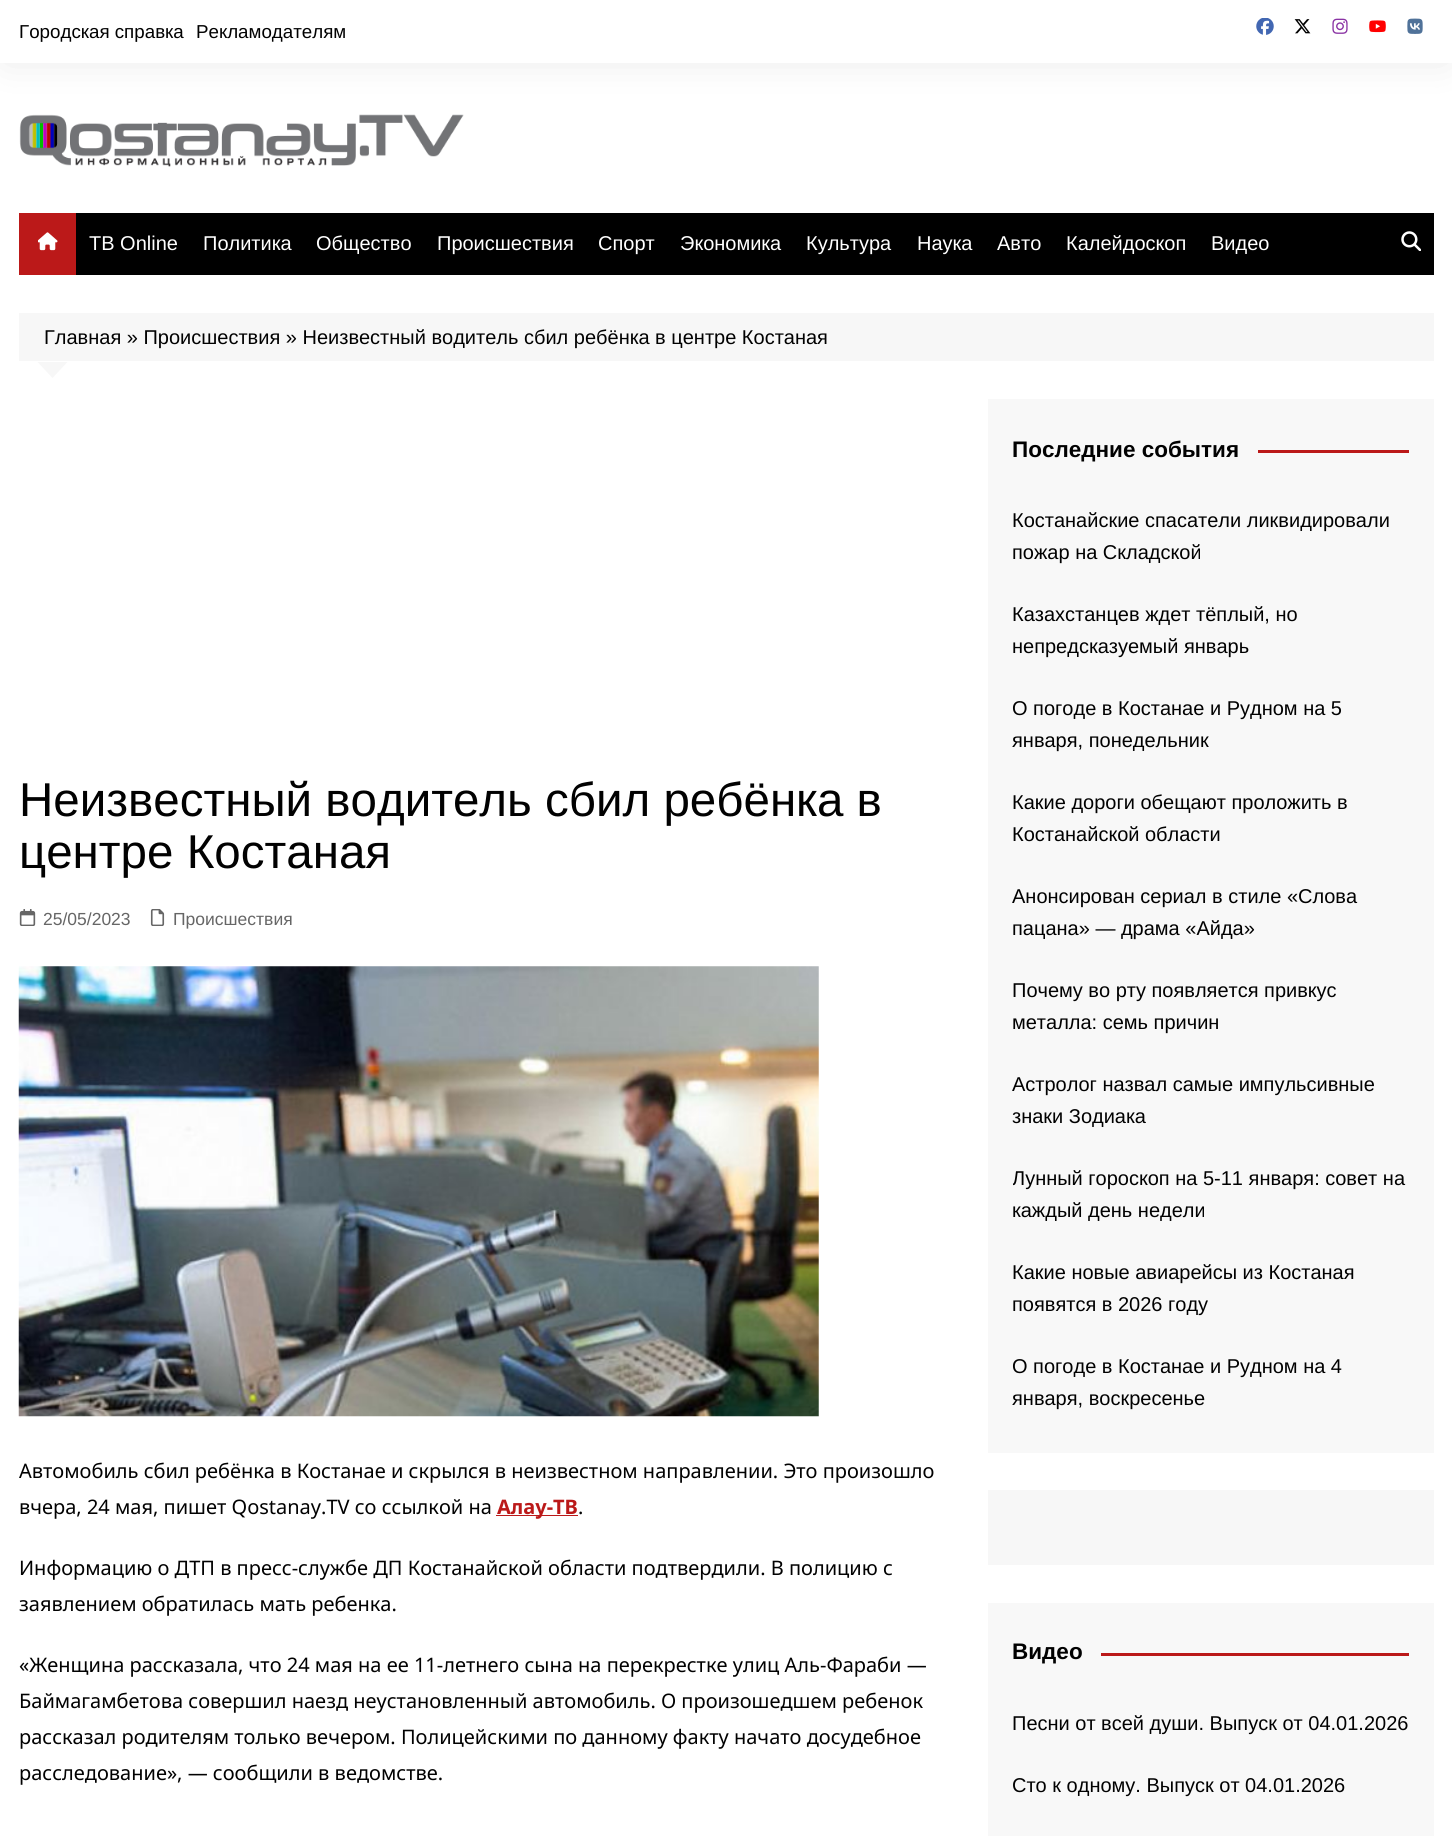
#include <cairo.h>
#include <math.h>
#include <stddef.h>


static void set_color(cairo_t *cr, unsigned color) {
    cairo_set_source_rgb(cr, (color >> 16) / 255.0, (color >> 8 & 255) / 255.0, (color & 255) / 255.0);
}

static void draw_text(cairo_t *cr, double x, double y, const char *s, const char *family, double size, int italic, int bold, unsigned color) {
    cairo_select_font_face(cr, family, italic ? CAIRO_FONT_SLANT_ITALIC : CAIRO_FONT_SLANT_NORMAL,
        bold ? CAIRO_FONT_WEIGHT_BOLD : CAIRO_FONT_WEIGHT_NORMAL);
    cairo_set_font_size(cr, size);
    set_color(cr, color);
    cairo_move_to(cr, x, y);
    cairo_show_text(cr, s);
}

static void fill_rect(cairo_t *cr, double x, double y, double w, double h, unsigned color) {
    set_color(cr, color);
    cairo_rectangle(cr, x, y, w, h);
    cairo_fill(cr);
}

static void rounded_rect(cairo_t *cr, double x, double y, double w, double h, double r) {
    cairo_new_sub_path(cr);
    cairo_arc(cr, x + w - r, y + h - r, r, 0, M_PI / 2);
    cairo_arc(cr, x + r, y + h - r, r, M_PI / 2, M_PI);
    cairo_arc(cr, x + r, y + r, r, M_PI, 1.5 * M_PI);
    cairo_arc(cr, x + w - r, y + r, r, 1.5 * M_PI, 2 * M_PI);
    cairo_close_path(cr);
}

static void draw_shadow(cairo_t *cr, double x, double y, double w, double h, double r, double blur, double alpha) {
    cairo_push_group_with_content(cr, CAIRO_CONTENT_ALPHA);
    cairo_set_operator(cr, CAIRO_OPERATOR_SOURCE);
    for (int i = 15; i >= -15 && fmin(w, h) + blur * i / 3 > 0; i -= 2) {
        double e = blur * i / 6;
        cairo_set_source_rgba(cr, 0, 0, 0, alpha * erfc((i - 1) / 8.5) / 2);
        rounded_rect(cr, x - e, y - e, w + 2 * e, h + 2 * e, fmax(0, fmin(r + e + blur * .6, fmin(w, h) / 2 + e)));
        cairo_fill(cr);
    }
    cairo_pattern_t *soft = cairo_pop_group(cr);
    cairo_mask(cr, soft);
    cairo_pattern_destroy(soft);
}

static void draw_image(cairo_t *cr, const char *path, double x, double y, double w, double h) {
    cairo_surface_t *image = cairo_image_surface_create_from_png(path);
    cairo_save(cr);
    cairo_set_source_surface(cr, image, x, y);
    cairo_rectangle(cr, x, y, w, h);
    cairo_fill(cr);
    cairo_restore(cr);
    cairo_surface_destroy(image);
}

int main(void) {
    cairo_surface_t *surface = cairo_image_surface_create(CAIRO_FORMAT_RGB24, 1452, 1836);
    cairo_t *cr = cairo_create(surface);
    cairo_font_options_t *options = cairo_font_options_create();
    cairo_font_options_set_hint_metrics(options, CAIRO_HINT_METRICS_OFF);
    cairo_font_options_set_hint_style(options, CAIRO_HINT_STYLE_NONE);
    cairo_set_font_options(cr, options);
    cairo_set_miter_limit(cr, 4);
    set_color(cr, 0xFFFFFF);
    cairo_paint(cr);
    set_color(cr, 0x000000);
    draw_shadow(cr, 6, 9, 1440, 50, 0, 19, 0.1);
    fill_rect(cr, 0, 0, 1452, 63, 0xFFFFFF);
    draw_text(cr, 19, 38, "Городская справка", "Liberation Sans", 18.75, 0, 0, 0x010101);
    draw_text(cr, 196, 38, "Рекламодателям", "Liberation Sans", 18.75, 0, 0, 0x010101);
    draw_image(cr, "assets/img1.png", 1256, 18, 18, 17);
    draw_image(cr, "assets/img2.png", 1294, 19, 17, 15);
    draw_image(cr, "assets/img3.png", 1332, 18, 16, 16);
    draw_image(cr, "assets/img4.png", 1369, 20, 17, 13);
    draw_image(cr, "assets/img5.png", 1407, 18, 16, 16);
    draw_image(cr, "assets/img6.png", 19, 114, 445, 53);
    fill_rect(cr, 76, 213, 1358, 62, 0x000000);
    fill_rect(cr, 19, 213, 57, 62, 0xBB1919);
    draw_image(cr, "assets/img7.png", 38, 232, 20, 19);
    draw_text(cr, 89, 250, "ТВ Online", "Liberation Sans", 20, 0, 0, 0xFFFFFF);
    draw_text(cr, 203, 250, "Политика", "Liberation Sans", 20, 0, 0, 0xFFFFFF);
    draw_text(cr, 316, 250, "Общество", "Liberation Sans", 20, 0, 0, 0xFFFFFF);
    draw_text(cr, 437, 250, "Происшествия", "Liberation Sans", 20, 0, 0, 0xFFFFFF);
    draw_text(cr, 598, 250, "Спорт", "Liberation Sans", 20, 0, 0, 0xFFFFFF);
    draw_text(cr, 680, 250, "Экономика", "Liberation Sans", 20, 0, 0, 0xFFFFFF);
    draw_text(cr, 806, 250, "Культура", "Liberation Sans", 20, 0, 0, 0xFFFFFF);
    draw_text(cr, 917, 250, "Наука", "Liberation Sans", 20, 0, 0, 0xFFFFFF);
    draw_text(cr, 997, 250, "Авто", "Liberation Sans", 20, 0, 0, 0xFFFFFF);
    draw_text(cr, 1066, 250, "Калейдоскоп", "Liberation Sans", 20, 0, 0, 0xFFFFFF);
    draw_text(cr, 1211, 250, "Видео", "Liberation Sans", 20, 0, 0, 0xFFFFFF);
    draw_image(cr, "assets/img8.png", 1401, 231, 20, 20);
    fill_rect(cr, 19, 313, 1415, 48, 0xF7F7F7);
    draw_text(cr, 44, 344, "Главная » Происшествия » Неизвестный водитель сбил ребёнка в центре Костаная", "Liberation Sans", 20, 0, 0, 0x010101);
    set_color(cr, 0xF7F7F7);
    cairo_new_path(cr);
    cairo_move_to(cr, 37.5, 362);
    cairo_line_to(cr, 67.5, 362);
    cairo_line_to(cr, 52.5, 378);
    cairo_close_path(cr);
    cairo_fill(cr);
    draw_text(cr, 19, 816, "Неизвестный водитель сбил ребёнка в", "Liberation Sans", 47.5, 0, 0, 0x010101);
    draw_text(cr, 19, 868, "центре Костаная", "Liberation Sans", 47.5, 0, 0, 0x010101);
    draw_image(cr, "assets/img9.png", 19, 909, 17, 17);
    draw_text(cr, 43, 925, "25/05/2023", "Liberation Sans", 17.5, 0, 0, 0x666666);
    draw_image(cr, "assets/img10.png", 150, 909, 15, 17);
    draw_text(cr, 173, 925, "Происшествия", "Liberation Sans", 17.5, 0, 0, 0x666666);
    draw_image(cr, "assets/img11.png", 18, 966, 801, 451);
    draw_text(cr, 19, 1478, "Автомобиль сбил ребёнка в Костанае и скрылся в неизвестном направлении. Это произошло", "Noto Sans", 20, 0, 0, 0x010101);
    draw_text(cr, 19, 1514, "вчера, 24 мая, пишет Qostanay.TV со ссылкой на", "Noto Sans", 20, 0, 0, 0x010101);
    fill_rect(cr, 496, 1515, 82, 1, 0xBB1919);
    draw_text(cr, 497, 1514, "Алау-ТВ", "Noto Sans", 20, 0, 1, 0xBB1919);
    draw_text(cr, 578, 1514, ".", "Noto Sans", 20, 0, 0, 0x010101);
    draw_text(cr, 19, 1575, "Информацию о ДТП в пресс-службе ДП Костанайской области подтвердили. В полицию с", "Noto Sans", 20, 0, 0, 0x010101);
    draw_text(cr, 19, 1611, "заявлением обратилась мать ребенка.", "Noto Sans", 20, 0, 0, 0x010101);
    draw_text(cr, 19, 1672, "«Женщина рассказала, что 24 мая на ее 11-летнего сына на перекрестке улиц Аль-Фараби —", "Noto Sans", 20, 0, 0, 0x010101);
    draw_text(cr, 19, 1708, "Баймагамбетова совершил наезд неустановленный автомобиль. О произошедшем ребенок", "Noto Sans", 20, 0, 0, 0x010101);
    draw_text(cr, 19, 1744, "рассказал родителям только вечером. Полицейскими по данному факту начато досудебное", "Noto Sans", 20, 0, 0, 0x010101);
    draw_text(cr, 19, 1780, "расследование», — сообщили в ведомстве.", "Noto Sans", 20, 0, 0, 0x010101);
    fill_rect(cr, 988, 399, 446, 1054, 0xF8F8F8);
    draw_text(cr, 1012, 457, "Последние события", "Liberation Sans", 22.5, 0, 1, 0x010101);
    fill_rect(cr, 1258, 450, 151, 3, 0xBB1919);
    draw_text(cr, 1012, 527, "Костанайские спасатели ликвидировали", "Liberation Sans", 20, 0, 0, 0x010101);
    draw_text(cr, 1012, 559, "пожар на Складской", "Liberation Sans", 20, 0, 0, 0x010101);
    draw_text(cr, 1012, 621, "Казахстанцев ждет тёплый, но", "Liberation Sans", 20, 0, 0, 0x010101);
    draw_text(cr, 1012, 653, "непредсказуемый январь", "Liberation Sans", 20, 0, 0, 0x010101);
    draw_text(cr, 1012, 715, "О погоде в Костанае и Рудном на 5", "Liberation Sans", 20, 0, 0, 0x010101);
    draw_text(cr, 1012, 747, "января, понедельник", "Liberation Sans", 20, 0, 0, 0x010101);
    draw_text(cr, 1012, 809, "Какие дороги обещают проложить в", "Liberation Sans", 20, 0, 0, 0x010101);
    draw_text(cr, 1012, 841, "Костанайской области", "Liberation Sans", 20, 0, 0, 0x010101);
    draw_text(cr, 1012, 903, "Анонсирован сериал в стиле «Слова", "Liberation Sans", 20, 0, 0, 0x010101);
    draw_text(cr, 1012, 935, "пацана» — драма «Айда»", "Liberation Sans", 20, 0, 0, 0x010101);
    draw_text(cr, 1012, 997, "Почему во рту появляется привкус", "Liberation Sans", 20, 0, 0, 0x010101);
    draw_text(cr, 1012, 1029, "металла: семь причин", "Liberation Sans", 20, 0, 0, 0x010101);
    draw_text(cr, 1012, 1091, "Астролог назвал самые импульсивные", "Liberation Sans", 20, 0, 0, 0x010101);
    draw_text(cr, 1012, 1123, "знаки Зодиака", "Liberation Sans", 20, 0, 0, 0x010101);
    cairo_save(cr);
    cairo_rectangle(cr, 1013, 1163, 396, 63);
    cairo_clip(cr);
    draw_text(cr, 1012, 1185, "Лунный гороскоп на 5-11 января: совет на", "Liberation Sans", 20, 0, 0, 0x010101);
    cairo_restore(cr);
    draw_text(cr, 1012, 1217, "каждый день недели", "Liberation Sans", 20, 0, 0, 0x010101);
    draw_text(cr, 1012, 1279, "Какие новые авиарейсы из Костаная", "Liberation Sans", 20, 0, 0, 0x010101);
    draw_text(cr, 1012, 1311, "появятся в 2026 году", "Liberation Sans", 20, 0, 0, 0x010101);
    draw_text(cr, 1012, 1373, "О погоде в Костанае и Рудном на 4", "Liberation Sans", 20, 0, 0, 0x010101);
    draw_text(cr, 1012, 1405, "января, воскресенье", "Liberation Sans", 20, 0, 0, 0x010101);
    fill_rect(cr, 988, 1490, 446, 75, 0xF7F7F7);
    fill_rect(cr, 988, 1603, 446, 233, 0xF8F8F8);
    draw_text(cr, 1012, 1659, "Видео", "Liberation Sans", 22.5, 0, 1, 0x010101);
    fill_rect(cr, 1101, 1653, 308, 3, 0xBB1919);
    draw_text(cr, 1012, 1730, "Песни от всей души. Выпуск от 04.01.2026", "Liberation Sans", 20, 0, 0, 0x010101);
    draw_text(cr, 1012, 1792, "Сто к одному. Выпуск от 04.01.2026", "Liberation Sans", 20, 0, 0, 0x010101);
    cairo_surface_write_to_png(surface, "output.png");
    cairo_font_options_destroy(options);
    cairo_destroy(cr);
    cairo_surface_destroy(surface);
    return 0;
}
